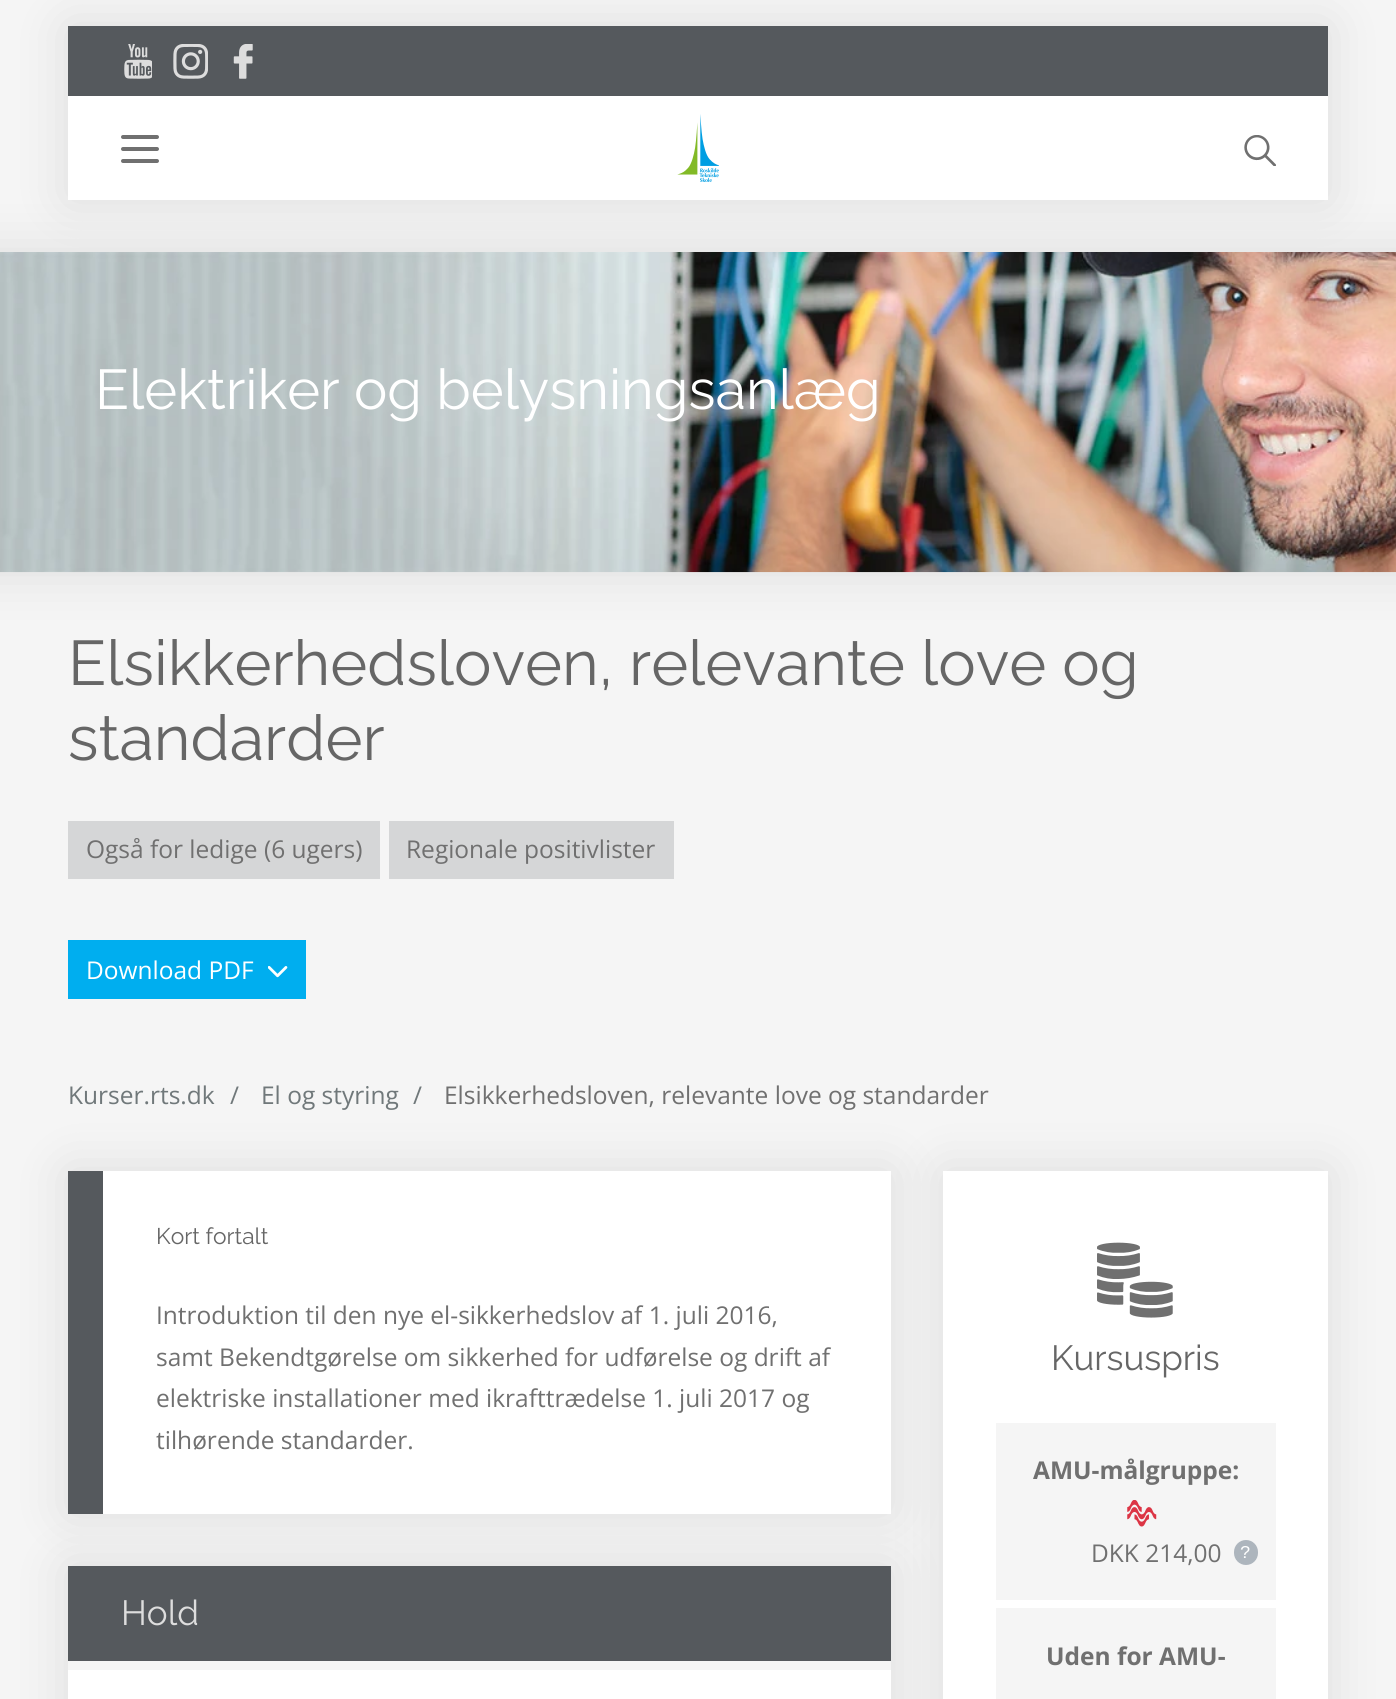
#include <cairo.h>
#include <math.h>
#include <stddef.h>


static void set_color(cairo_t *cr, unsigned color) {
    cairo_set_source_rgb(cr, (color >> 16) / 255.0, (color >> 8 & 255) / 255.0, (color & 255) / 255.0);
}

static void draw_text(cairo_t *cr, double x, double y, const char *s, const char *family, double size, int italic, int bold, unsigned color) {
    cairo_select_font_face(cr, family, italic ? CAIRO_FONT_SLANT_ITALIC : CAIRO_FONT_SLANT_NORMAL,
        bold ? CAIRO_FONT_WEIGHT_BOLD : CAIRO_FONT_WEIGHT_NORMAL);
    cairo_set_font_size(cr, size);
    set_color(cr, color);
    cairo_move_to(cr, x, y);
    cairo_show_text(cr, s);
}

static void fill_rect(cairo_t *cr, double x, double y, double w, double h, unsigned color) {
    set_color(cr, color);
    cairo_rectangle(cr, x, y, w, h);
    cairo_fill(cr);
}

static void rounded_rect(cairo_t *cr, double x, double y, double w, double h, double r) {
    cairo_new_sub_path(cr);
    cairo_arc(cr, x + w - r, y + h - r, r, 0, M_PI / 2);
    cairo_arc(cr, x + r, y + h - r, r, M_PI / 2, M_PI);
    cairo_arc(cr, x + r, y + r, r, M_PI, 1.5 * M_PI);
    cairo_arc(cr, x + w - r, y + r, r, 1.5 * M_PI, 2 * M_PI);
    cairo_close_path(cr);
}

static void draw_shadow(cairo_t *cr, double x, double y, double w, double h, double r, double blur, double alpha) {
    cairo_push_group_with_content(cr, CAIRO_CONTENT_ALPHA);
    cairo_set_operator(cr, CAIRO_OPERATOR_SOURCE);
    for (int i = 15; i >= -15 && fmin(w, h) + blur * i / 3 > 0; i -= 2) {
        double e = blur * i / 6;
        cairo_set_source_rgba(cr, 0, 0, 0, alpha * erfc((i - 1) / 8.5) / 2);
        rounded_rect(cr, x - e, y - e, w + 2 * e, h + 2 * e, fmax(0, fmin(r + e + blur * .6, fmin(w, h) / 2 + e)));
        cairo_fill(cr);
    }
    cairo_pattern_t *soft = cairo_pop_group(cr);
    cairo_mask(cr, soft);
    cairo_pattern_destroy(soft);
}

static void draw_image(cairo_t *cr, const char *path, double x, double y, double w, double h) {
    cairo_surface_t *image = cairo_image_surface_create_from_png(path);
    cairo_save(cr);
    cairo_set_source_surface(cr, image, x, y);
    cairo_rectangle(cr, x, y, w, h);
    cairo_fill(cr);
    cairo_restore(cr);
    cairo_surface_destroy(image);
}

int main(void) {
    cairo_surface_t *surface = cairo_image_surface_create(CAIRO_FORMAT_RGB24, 1396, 1699);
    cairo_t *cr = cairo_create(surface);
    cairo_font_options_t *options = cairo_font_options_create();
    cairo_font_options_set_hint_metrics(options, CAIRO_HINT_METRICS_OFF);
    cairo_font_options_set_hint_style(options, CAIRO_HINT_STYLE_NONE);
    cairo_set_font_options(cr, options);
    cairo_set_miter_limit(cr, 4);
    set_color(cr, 0xF5F5F5);
    cairo_paint(cr);
    set_color(cr, 0x000000);
    draw_shadow(cr, 68, 26, 1260, 174, 0, 26, 0.1);
    fill_rect(cr, 68, 26, 1260, 70, 0x55595D);
    draw_image(cr, "assets/img1.png", 124, 44, 28, 35);
    draw_image(cr, "assets/img2.png", 173, 44, 35, 35);
    draw_image(cr, "assets/img3.png", 233, 44, 20, 35);
    set_color(cr, 0x000000);
    draw_shadow(cr, -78, 252, 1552, 320, 0, 26, 0.1);
    fill_rect(cr, 68, 96, 1260, 104, 0xFFFFFF);
    set_color(cr, 0x707070);
    rounded_rect(cr, 121, 135, 38, 4, 2);
    cairo_fill(cr);
    rounded_rect(cr, 121, 147, 38, 4, 2);
    cairo_fill(cr);
    rounded_rect(cr, 121, 159, 38, 4, 2);
    cairo_fill(cr);
    draw_image(cr, "assets/img4.png", 677, 114, 42, 68);
    draw_image(cr, "assets/img5.png", 1244, 135, 32, 31);
    draw_image(cr, "assets/img6.png", 0, 252, 1396, 321);
    draw_text(cr, 95, 409, "Elektriker og belysningsanlæg", "Raleway", 56, 0, 0, 0xFFFFFF);
    draw_text(cr, 68, 685, "Elsikkerhedsloven, relevante love og", "Raleway", 63, 0, 0, 0x666666);
    draw_text(cr, 68, 760, "standarder", "Raleway", 63, 0, 0, 0x666666);
    fill_rect(cr, 68, 821, 312, 58, 0xD5D6D7);
    draw_text(cr, 86, 858, "Også for ledige (6 ugers)", "Open Sans", 24.5, 0, 0, 0x707070);
    fill_rect(cr, 389, 821, 285, 58, 0xD5D6D7);
    draw_text(cr, 406, 858, "Regionale positivlister", "Open Sans", 24.5, 0, 0, 0x707070);
    fill_rect(cr, 68, 940, 238, 59, 0x00AEEF);
    draw_text(cr, 86, 979, "Download PDF", "Open Sans", 24.5, 0, 0, 0xFFFFFF);
    draw_image(cr, "assets/img7.png", 268, 966, 20, 12);
    draw_text(cr, 68, 1104, "Kurser.rts.dk", "Open Sans", 24.5, 0, 0, 0x70787A);
    draw_text(cr, 230, 1104, "/", "Open Sans", 24.5, 0, 0, 0x70787A);
    draw_text(cr, 261, 1104, "El og styring", "Open Sans", 24.5, 0, 0, 0x70787A);
    draw_text(cr, 413, 1104, "/", "Open Sans", 24.5, 0, 0, 0x70787A);
    draw_text(cr, 444, 1104, "Elsikkerhedsloven, relevante love og standarder", "Open Sans", 24.5, 0, 0, 0x707070);
    set_color(cr, 0x000000);
    draw_shadow(cr, 68, 1171, 823, 343, 0, 26, 0.1);
    fill_rect(cr, 103, 1171, 788, 343, 0xFFFFFF);
    fill_rect(cr, 68, 1171, 35, 343, 0x55595D);
    draw_text(cr, 156, 1244, "Kort fortalt", "Raleway", 22.75, 0, 0, 0x666666);
    draw_text(cr, 156, 1324, "Introduktion til den nye el-sikkerhedslov af 1. juli 2016,", "Open Sans", 24.5, 0, 0, 0x707070);
    draw_text(cr, 156, 1366, "samt Bekendtgørelse om sikkerhed for udførelse og drift af", "Open Sans", 24.5, 0, 0, 0x707070);
    draw_text(cr, 156, 1407, "elektriske installationer med ikrafttrædelse 1. juli 2017 og", "Open Sans", 24.5, 0, 0, 0x707070);
    draw_text(cr, 156, 1449, "tilhørende standarder.", "Open Sans", 24.5, 0, 0, 0x707070);
    cairo_save(cr);
    cairo_set_fill_rule(cr, CAIRO_FILL_RULE_EVEN_ODD);
    cairo_new_path(cr);
    cairo_move_to(cr, 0, 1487);
    cairo_line_to(cr, 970, 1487);
    cairo_line_to(cr, 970, 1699);
    cairo_line_to(cr, 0, 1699);
    cairo_close_path(cr);
    cairo_move_to(cr, 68, 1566);
    cairo_line_to(cr, 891, 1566);
    cairo_line_to(cr, 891, 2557);
    cairo_line_to(cr, 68, 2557);
    cairo_close_path(cr);
    cairo_clip(cr);
    set_color(cr, 0x000000);
    draw_shadow(cr, 68, 1566, 823, 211, 0, 26, 0.1);
    cairo_restore(cr);
    fill_rect(cr, 68, 1566, 823, 95, 0x55595D);
    draw_text(cr, 121, 1625, "Hold", "Raleway", 35, 0, 0, 0xDDDDDD);
    fill_rect(cr, 68, 1670, 823, 29, 0xFFFFFF);
    set_color(cr, 0x000000);
    draw_shadow(cr, 943, 1171, 385, 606, 0, 26, 0.1);
    fill_rect(cr, 943, 1171, 385, 528, 0xFFFFFF);
    draw_image(cr, "assets/img8.png", 1097, 1242, 76, 76);
    draw_text(cr, 1051, 1370, "Kursuspris", "Raleway", 35, 0, 0, 0x666666);
    fill_rect(cr, 996, 1423, 280, 177, 0xF5F5F5);
    draw_text(cr, 1033, 1479, "AMU-målgruppe:", "Open Sans", 24.5, 0, 1, 0x707070);
    draw_image(cr, "assets/img9.png", 1127, 1500, 30, 27);
    draw_text(cr, 1091, 1562, "DKK 214,00", "Open Sans", 24.5, 0, 0, 0x707070);
    set_color(cr, 0xADB5BD);
    rounded_rect(cr, 1234, 1540, 24, 25, 12);
    cairo_fill(cr);
    draw_text(cr, 1240, 1558, "?", "Liberation Mono", 18, 0, 0, 0xFFFFFF);
    fill_rect(cr, 996, 1608, 280, 91, 0xF5F5F5);
    draw_text(cr, 1046, 1665, "Uden for AMU-", "Open Sans", 24.5, 0, 1, 0x707070);
    cairo_surface_write_to_png(surface, "output.png");
    cairo_font_options_destroy(options);
    cairo_destroy(cr);
    cairo_surface_destroy(surface);
    return 0;
}
